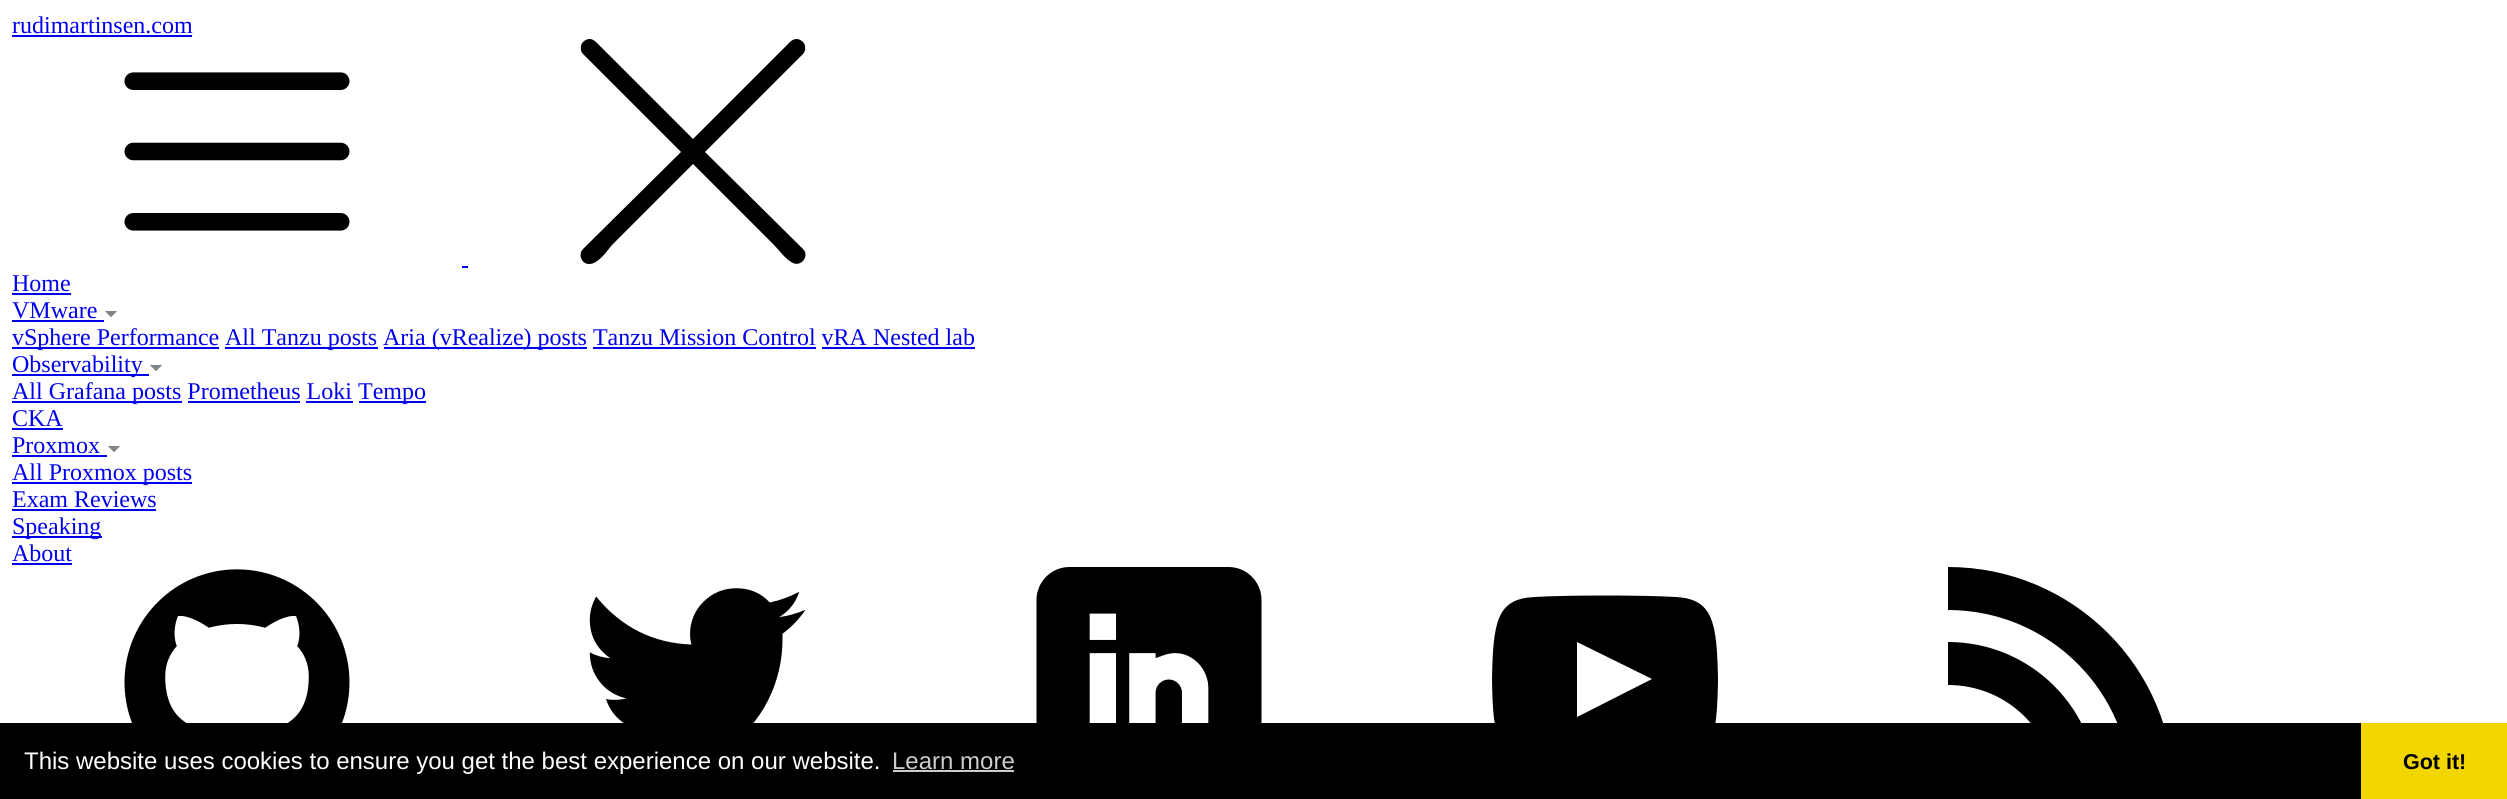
#include <cairo.h>
#include <math.h>
#include <stddef.h>


static void set_color(cairo_t *cr, unsigned color) {
    cairo_set_source_rgb(cr, (color >> 16) / 255.0, (color >> 8 & 255) / 255.0, (color & 255) / 255.0);
}

static void draw_text(cairo_t *cr, double x, double y, const char *s, const char *family, double size, int italic, int bold, unsigned color) {
    cairo_select_font_face(cr, family, italic ? CAIRO_FONT_SLANT_ITALIC : CAIRO_FONT_SLANT_NORMAL,
        bold ? CAIRO_FONT_WEIGHT_BOLD : CAIRO_FONT_WEIGHT_NORMAL);
    cairo_set_font_size(cr, size);
    set_color(cr, color);
    cairo_move_to(cr, x, y);
    cairo_show_text(cr, s);
}

static void fill_rect(cairo_t *cr, double x, double y, double w, double h, unsigned color) {
    set_color(cr, color);
    cairo_rectangle(cr, x, y, w, h);
    cairo_fill(cr);
}

static void draw_image(cairo_t *cr, const char *path, double x, double y, double w, double h) {
    cairo_surface_t *image = cairo_image_surface_create_from_png(path);
    cairo_save(cr);
    cairo_set_source_surface(cr, image, x, y);
    cairo_rectangle(cr, x, y, w, h);
    cairo_fill(cr);
    cairo_restore(cr);
    cairo_surface_destroy(image);
}

int main(void) {
    cairo_surface_t *surface = cairo_image_surface_create(CAIRO_FORMAT_RGB24, 2507, 799);
    cairo_t *cr = cairo_create(surface);
    cairo_font_options_t *options = cairo_font_options_create();
    cairo_font_options_set_hint_metrics(options, CAIRO_HINT_METRICS_OFF);
    cairo_font_options_set_hint_style(options, CAIRO_HINT_STYLE_NONE);
    cairo_set_font_options(cr, options);
    cairo_set_miter_limit(cr, 4);
    set_color(cr, 0xFFFFFF);
    cairo_paint(cr);
    draw_text(cr, 12, 33, "rudimartinsen.com", "Liberation Serif", 24, 0, 0, 0x0000EE);
    fill_rect(cr, 12, 35, 180, 2, 0x0000EE);
    draw_image(cr, "assets/img1.png", 124, 72, 226, 159);
    set_color(cr, 0x000000);
    cairo_new_path(cr);
    cairo_move_to(cr, 705, 152);
    cairo_line_to(cr, 803, 54);
    cairo_curve_to(cr, 806, 51, 806, 45, 803, 42);
    cairo_curve_to(cr, 799, 38, 794, 38, 790, 42);
    cairo_line_to(cr, 693, 139);
    cairo_line_to(cr, 596, 42);
    cairo_curve_to(cr, 592, 38, 587, 38, 583, 42);
    cairo_curve_to(cr, 580, 45, 580, 51, 583, 54);
    cairo_line_to(cr, 681, 152);
    cairo_line_to(cr, 583, 249);
    cairo_curve_to(cr, 579, 253, 580, 260, 585, 263);
    cairo_curve_to(cr, 596, 269, 609, 248, 612, 245);
    cairo_line_to(cr, 693, 164);
    cairo_line_to(cr, 774, 245);
    cairo_curve_to(cr, 780, 251, 785, 259, 793, 263);
    cairo_curve_to(cr, 801, 267, 810, 256, 803, 249);
    cairo_close_path(cr);
    cairo_fill(cr);
    fill_rect(cr, 462, 266, 6, 2, 0x0000EE);
    draw_text(cr, 12, 291, "Home", "Liberation Serif", 24, 0, 0, 0x0000EE);
    fill_rect(cr, 12, 293, 59, 2, 0x0000EE);
    draw_text(cr, 12, 318, "VMware", "Liberation Serif", 24, 0, 0, 0x0000EE);
    fill_rect(cr, 12, 320, 92, 2, 0x0000EE);
    draw_image(cr, "assets/img2.png", 105, 311, 12, 6);
    fill_rect(cr, 12, 347, 207, 2, 0x0000EE);
    draw_text(cr, 12, 345, "vSphere Performance", "Liberation Serif", 24, 0, 0, 0x0000EE);
    fill_rect(cr, 225, 347, 153, 2, 0x0000EE);
    draw_text(cr, 225, 345, "All Tanzu posts", "Liberation Serif", 24, 0, 0, 0x0000EE);
    fill_rect(cr, 384, 347, 203, 2, 0x0000EE);
    draw_text(cr, 383, 345, "Aria (vRealize) posts Tanzu Mission Control vRA Nested lab", "Liberation Serif", 24, 0, 0, 0x0000EE);
    fill_rect(cr, 593, 347, 223, 2, 0x0000EE);
    fill_rect(cr, 822, 347, 153, 2, 0x0000EE);
    fill_rect(cr, 12, 374, 137, 2, 0x0000EE);
    draw_text(cr, 12, 372, "Observability", "Liberation Serif", 24, 0, 0, 0x0000EE);
    draw_image(cr, "assets/img2.png", 150, 365, 12, 6);
    fill_rect(cr, 12, 401, 170, 2, 0x0000EE);
    draw_text(cr, 12, 399, "All Grafana posts Prometheus Loki", "Liberation Serif", 24, 0, 0, 0x0000EE);
    fill_rect(cr, 359, 401, 67, 2, 0x0000EE);
    draw_text(cr, 358, 399, "Tempo", "Liberation Serif", 24, 0, 0, 0x0000EE);
    fill_rect(cr, 188, 401, 112, 2, 0x0000EE);
    fill_rect(cr, 306, 401, 47, 2, 0x0000EE);
    draw_text(cr, 12, 426, "CKA", "Liberation Serif", 24, 0, 0, 0x0000EE);
    fill_rect(cr, 12, 428, 51, 2, 0x0000EE);
    draw_text(cr, 12, 453, "Proxmox", "Liberation Serif", 24, 0, 0, 0x0000EE);
    fill_rect(cr, 12, 455, 95, 2, 0x0000EE);
    draw_image(cr, "assets/img2.png", 108, 446, 12, 6);
    fill_rect(cr, 12, 482, 180, 2, 0x0000EE);
    draw_text(cr, 12, 480, "All Proxmox posts", "Liberation Serif", 24, 0, 0, 0x0000EE);
    draw_text(cr, 12, 507, "Exam Reviews", "Liberation Serif", 24, 0, 0, 0x0000EE);
    fill_rect(cr, 12, 509, 144, 2, 0x0000EE);
    fill_rect(cr, 12, 536, 90, 2, 0x0000EE);
    draw_text(cr, 12, 534, "Speaking", "Liberation Serif", 24, 0, 0, 0x0000EE);
    draw_text(cr, 12, 561, "About", "Liberation Serif", 24, 0, 0, 0x0000EE);
    fill_rect(cr, 12, 563, 60, 2, 0x0000EE);
    draw_image(cr, "assets/img3.png", 124, 569, 226, 154);
    draw_image(cr, "assets/img4.png", 589, 588, 217, 135);
    draw_image(cr, "assets/img5.png", 1036, 567, 226, 156);
    set_color(cr, 0x000000);
    cairo_new_path(cr);
    cairo_move_to(cr, 1676, 597);
    cairo_curve_to(cr, 1643, 595, 1567, 595, 1534, 597);
    cairo_curve_to(cr, 1497, 599, 1493, 621, 1492, 680);
    cairo_curve_to(cr, 1493, 737, 1497, 760, 1534, 762);
    cairo_curve_to(cr, 1567, 764, 1643, 764, 1676, 762);
    cairo_curve_to(cr, 1713, 760, 1717, 738, 1718, 680);
    cairo_curve_to(cr, 1717, 622, 1713, 599, 1676, 597);
    cairo_close_path(cr);
    cairo_move_to(cr, 1577, 717);
    cairo_line_to(cr, 1577, 642);
    cairo_line_to(cr, 1652, 679);
    cairo_close_path(cr);
    cairo_fill(cr);
    cairo_new_path(cr);
    cairo_move_to(cr, 2056, 792);
    cairo_line_to(cr, 2098, 792);
    cairo_curve_to(cr, 2098, 709, 2031, 642, 1948, 642);
    cairo_line_to(cr, 1948, 685);
    cairo_curve_to(cr, 2008, 685, 2056, 733, 2056, 792);
    cairo_close_path(cr);
    cairo_fill(cr);
    cairo_new_path(cr);
    cairo_move_to(cr, 2174, 792);
    cairo_curve_to(cr, 2174, 668, 2073, 567, 1948, 567);
    cairo_line_to(cr, 1948, 610);
    cairo_curve_to(cr, 2049, 610, 2131, 692, 2131, 792);
    cairo_close_path(cr);
    cairo_fill(cr);
    fill_rect(cr, 0, 723, 2361, 76, 0x000000);
    draw_text(cr, 24, 769, "This website uses cookies to ensure you get the best experience on our website.", "Liberation Sans", 24, 0, 0, 0xFFFFFF);
    draw_text(cr, 892, 769, "Learn more", "Liberation Sans", 24, 0, 0, 0xCCCCCC);
    fill_rect(cr, 893, 770, 121, 2, 0xCCCCCC);
    fill_rect(cr, 2361, 723, 146, 76, 0xF1D600);
    draw_text(cr, 2403, 769, "Got it!", "Liberation Sans", 21.5, 0, 1, 0x000000);
    cairo_surface_write_to_png(surface, "output.png");
    cairo_font_options_destroy(options);
    cairo_destroy(cr);
    cairo_surface_destroy(surface);
    return 0;
}
